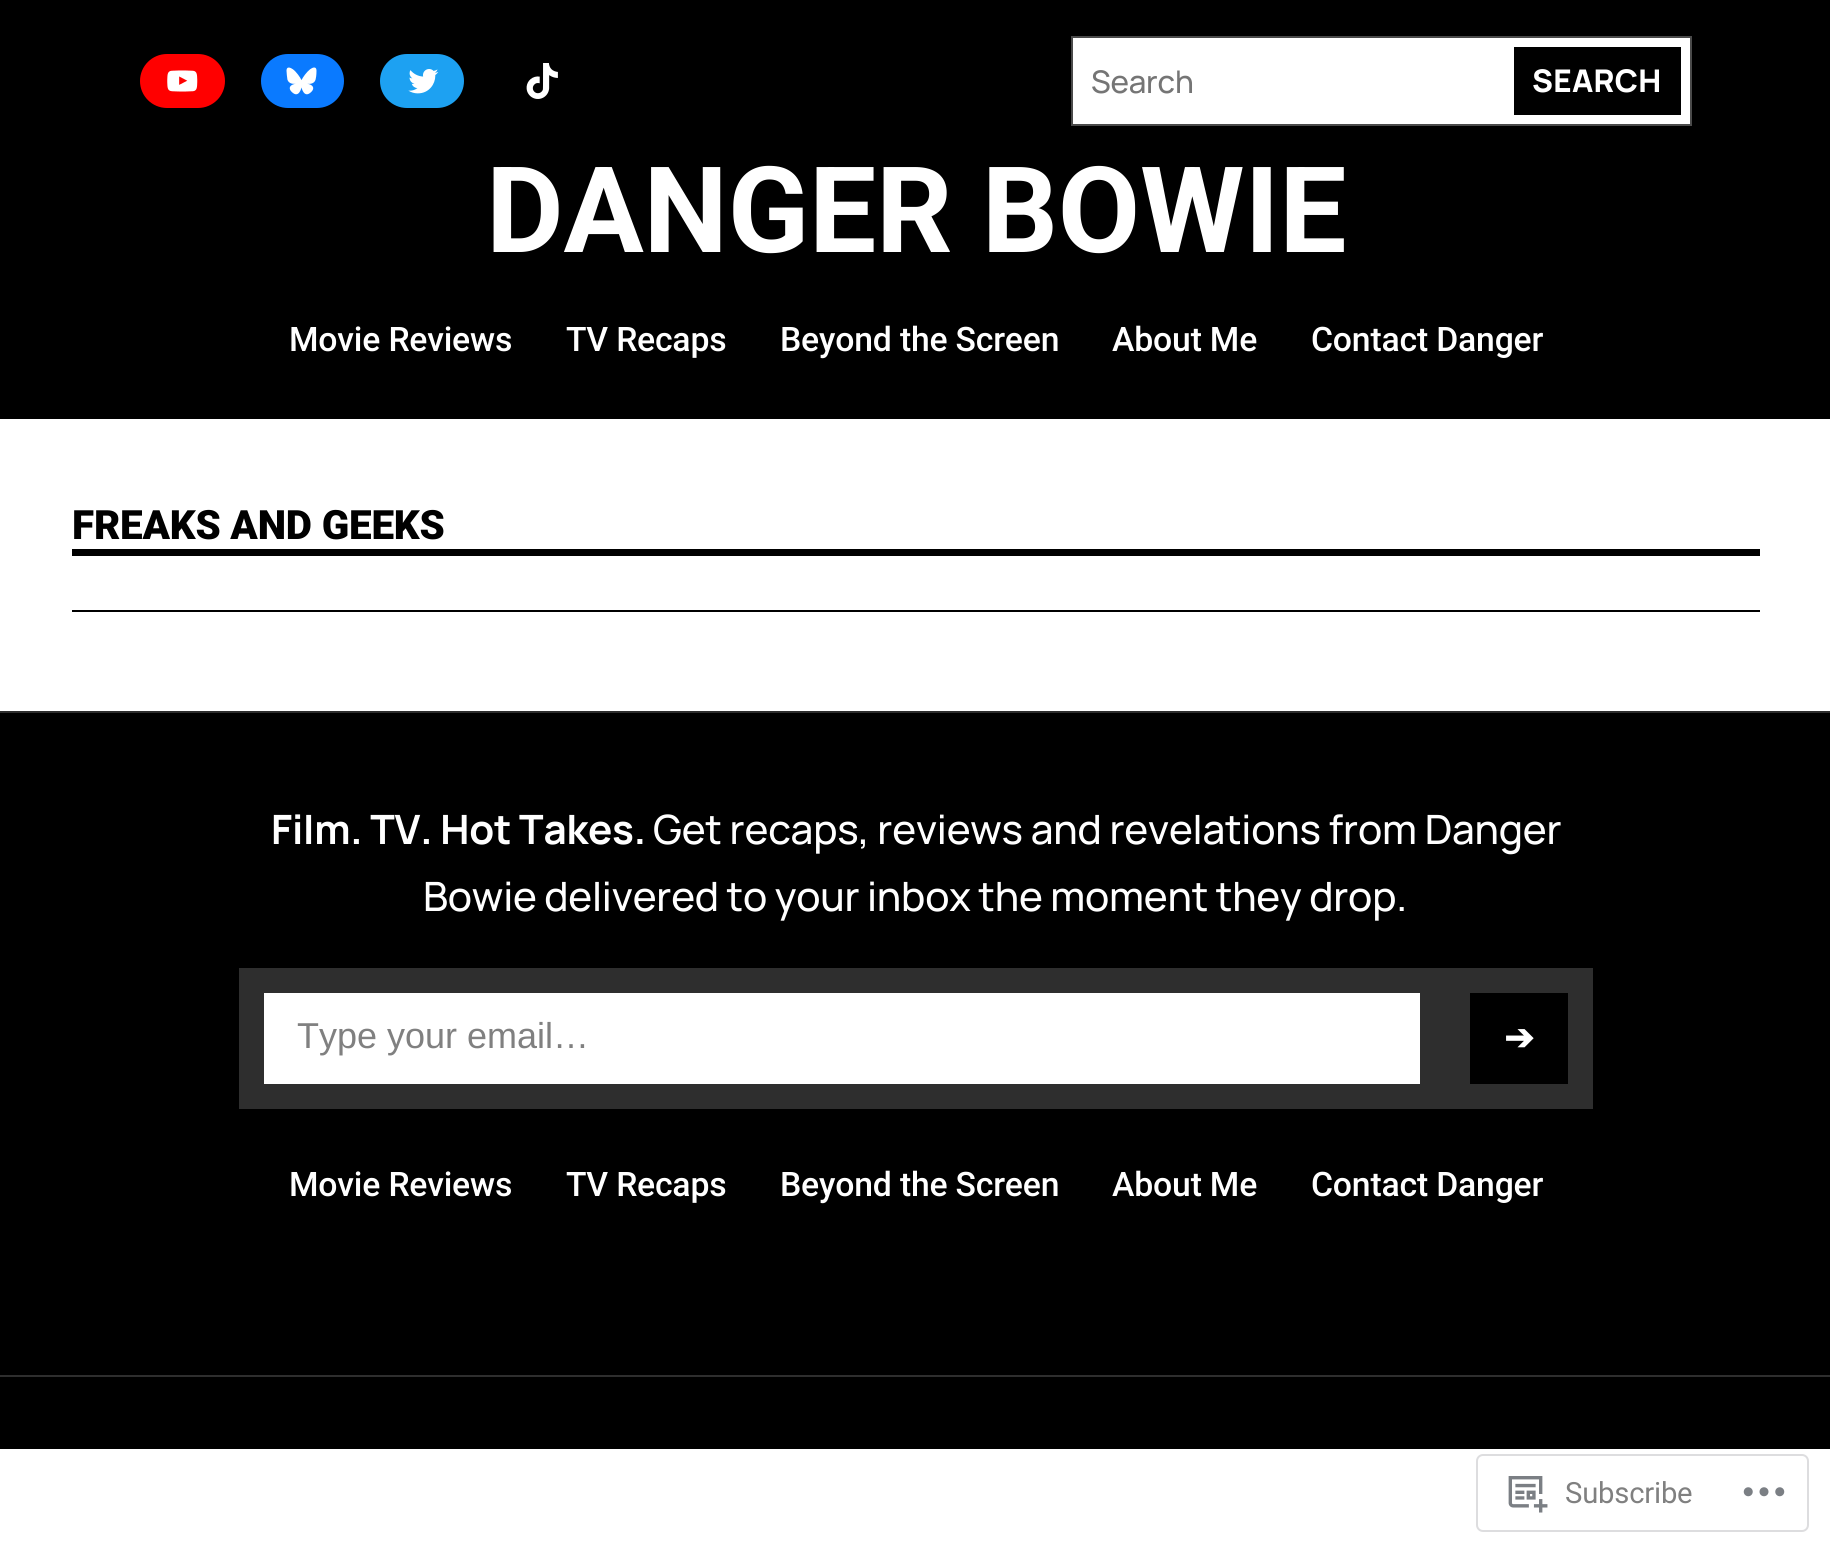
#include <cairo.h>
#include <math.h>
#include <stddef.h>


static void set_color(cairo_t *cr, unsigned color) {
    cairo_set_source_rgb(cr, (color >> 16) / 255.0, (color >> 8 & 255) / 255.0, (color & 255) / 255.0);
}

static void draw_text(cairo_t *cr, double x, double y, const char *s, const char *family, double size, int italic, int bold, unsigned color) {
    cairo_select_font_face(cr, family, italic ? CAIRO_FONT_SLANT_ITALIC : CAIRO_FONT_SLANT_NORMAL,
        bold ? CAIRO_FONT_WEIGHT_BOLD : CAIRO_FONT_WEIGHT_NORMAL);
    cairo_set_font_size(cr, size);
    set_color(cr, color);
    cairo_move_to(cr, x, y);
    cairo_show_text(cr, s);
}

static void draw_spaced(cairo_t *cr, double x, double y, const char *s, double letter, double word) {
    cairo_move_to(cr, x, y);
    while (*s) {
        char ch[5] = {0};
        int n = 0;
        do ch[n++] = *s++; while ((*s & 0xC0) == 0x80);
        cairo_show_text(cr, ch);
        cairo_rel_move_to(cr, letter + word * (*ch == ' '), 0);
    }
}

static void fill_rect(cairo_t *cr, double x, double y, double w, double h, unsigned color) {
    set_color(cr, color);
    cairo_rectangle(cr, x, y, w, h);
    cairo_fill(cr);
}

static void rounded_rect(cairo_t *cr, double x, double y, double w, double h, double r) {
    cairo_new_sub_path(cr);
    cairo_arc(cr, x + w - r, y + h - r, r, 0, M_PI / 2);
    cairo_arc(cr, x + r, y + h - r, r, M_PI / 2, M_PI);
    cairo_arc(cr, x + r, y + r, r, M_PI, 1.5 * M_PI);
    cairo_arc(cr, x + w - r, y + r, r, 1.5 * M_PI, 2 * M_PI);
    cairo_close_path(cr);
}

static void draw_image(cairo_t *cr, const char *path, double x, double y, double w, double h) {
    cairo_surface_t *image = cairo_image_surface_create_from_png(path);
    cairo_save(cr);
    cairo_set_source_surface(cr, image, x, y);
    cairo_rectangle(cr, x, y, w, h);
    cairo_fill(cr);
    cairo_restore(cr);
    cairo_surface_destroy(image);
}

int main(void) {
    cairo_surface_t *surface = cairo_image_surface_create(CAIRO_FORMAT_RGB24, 1830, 1553);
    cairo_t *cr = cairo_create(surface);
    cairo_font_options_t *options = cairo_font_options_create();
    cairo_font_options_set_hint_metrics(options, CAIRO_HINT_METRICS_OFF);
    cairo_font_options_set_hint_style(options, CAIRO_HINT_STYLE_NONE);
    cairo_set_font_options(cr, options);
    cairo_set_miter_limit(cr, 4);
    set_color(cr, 0xFFFFFF);
    cairo_paint(cr);
    fill_rect(cr, 0, 0, 1830, 419, 0x000000);
    set_color(cr, 0xFF0000);
    rounded_rect(cr, 140, 54, 85, 54, 27);
    cairo_fill(cr);
    draw_image(cr, "assets/img1.png", 167, 70, 31, 22);
    set_color(cr, 0x0A7AFF);
    rounded_rect(cr, 261, 54, 83, 54, 27);
    cairo_fill(cr);
    draw_image(cr, "assets/img2.png", 286, 67, 31, 28);
    set_color(cr, 0x1DA1F2);
    rounded_rect(cr, 380, 54, 84, 54, 27);
    cairo_fill(cr);
    draw_image(cr, "assets/img3.png", 408, 69, 31, 25);
    draw_image(cr, "assets/img4.png", 526, 63, 32, 36);
    set_color(cr, 0xFFFFFF);
    cairo_rectangle(cr, 1072, 37, 619, 88);
    cairo_fill_preserve(cr);
    set_color(cr, 0x4A4A4A);
    cairo_stroke(cr);
    cairo_select_font_face(cr, "Manrope Medium", CAIRO_FONT_SLANT_NORMAL, CAIRO_FONT_WEIGHT_NORMAL);
    cairo_set_font_size(cr, 31.25);
    set_color(cr, 0x757575);
    draw_spaced(cr, 1091, 93, "Search", -0.2, 0);
    fill_rect(cr, 1514, 47, 167, 68, 0x000000);
    cairo_select_font_face(cr, "Manrope ExtraBold", CAIRO_FONT_SLANT_NORMAL, CAIRO_FONT_WEIGHT_NORMAL);
    set_color(cr, 0xFFFFFF);
    draw_spaced(cr, 1532, 92, "SEARCH", 0.25, 0);
    cairo_select_font_face(cr, "Roboto", CAIRO_FONT_SLANT_NORMAL, CAIRO_FONT_WEIGHT_BOLD);
    cairo_set_font_size(cr, 119.5);
    draw_spaced(cr, 486, 252, "DANGER BOWIE", -0.2, 0);
    cairo_select_font_face(cr, "Roboto Medium", CAIRO_FONT_SLANT_NORMAL, CAIRO_FONT_WEIGHT_NORMAL);
    cairo_set_font_size(cr, 33.75);
    draw_spaced(cr, 289, 351, "Movie Reviews", -0.2, 0);
    draw_spaced(cr, 566, 351, "TV Recaps", -0.2, 0);
    draw_spaced(cr, 780, 351, "Beyond the Screen", -0.2, 0);
    draw_spaced(cr, 1112, 351, "About Me", -0.2, 0);
    draw_spaced(cr, 1311, 351, "Contact Danger", -0.2, 0);
    fill_rect(cr, 72, 549, 1688, 7, 0x000000);
    cairo_select_font_face(cr, "Roboto Black", CAIRO_FONT_SLANT_NORMAL, CAIRO_FONT_WEIGHT_NORMAL);
    cairo_set_font_size(cr, 40.4);
    draw_spaced(cr, 72, 539, "FREAKS AND GEEKS", -0.2, 0);
    fill_rect(cr, 72, 610, 1688, 2, 0x000000);
    fill_rect(cr, 0, 713, 1830, 736, 0x000000);
    fill_rect(cr, 0, 711, 1830, 2, 0x2E2E2E);
    cairo_select_font_face(cr, "Manrope", CAIRO_FONT_SLANT_NORMAL, CAIRO_FONT_WEIGHT_BOLD);
    set_color(cr, 0xFFFFFF);
    draw_spaced(cr, 271, 844, "Film. TV. Hot Takes.", -0.2, 0);
    cairo_select_font_face(cr, "Manrope Medium", CAIRO_FONT_SLANT_NORMAL, CAIRO_FONT_WEIGHT_NORMAL);
    draw_spaced(cr, 653, 844, "Get recaps, reviews and revelations from Danger", -0.2, 0);
    draw_spaced(cr, 423, 911, "Bowie delivered to your inbox the moment they drop.", -0.2, -0.25);
    cairo_rectangle(cr, 251.5, 980.5, 1181, 116);
    cairo_fill_preserve(cr);
    set_color(cr, 0x2E2E2E);
    cairo_set_line_width(cr, 25);
    cairo_stroke(cr);
    draw_text(cr, 297, 1048, "Type your email…", "Liberation Sans", 36, 0, 0, 0x808080);
    cairo_rectangle(cr, 1457.5, 980.5, 123, 116);
    set_color(cr, 0x2E2E2E);
    cairo_stroke(cr);
    draw_text(cr, 1504, 1050, "➔", "DejaVu Sans", 36, 0, 1, 0xFFFFFF);
    cairo_select_font_face(cr, "Roboto Medium", CAIRO_FONT_SLANT_NORMAL, CAIRO_FONT_WEIGHT_NORMAL);
    cairo_set_font_size(cr, 33.75);
    draw_spaced(cr, 289, 1196, "Movie Reviews", -0.2, 0);
    draw_spaced(cr, 566, 1196, "TV Recaps", -0.2, 0);
    draw_spaced(cr, 780, 1196, "Beyond the Screen", -0.2, 0);
    draw_spaced(cr, 1112, 1196, "About Me", -0.2, 0);
    draw_spaced(cr, 1311, 1196, "Contact Danger", -0.2, 0);
    fill_rect(cr, 0, 1375, 1830, 2, 0x2E2E2E);
    rounded_rect(cr, 1477, 1455, 331, 76, 6);
    set_color(cr, 0xDDDDDF);
    cairo_set_line_width(cr, 2);
    cairo_stroke(cr);
    draw_image(cr, "assets/img5.png", 1508, 1476, 40, 37);
    cairo_select_font_face(cr, "Roboto", CAIRO_FONT_SLANT_NORMAL, CAIRO_FONT_WEIGHT_NORMAL);
    cairo_set_font_size(cr, 29.25);
    set_color(cr, 0x808080);
    draw_spaced(cr, 1565, 1503, "Subscribe", -0.2, 0);
    draw_image(cr, "assets/img6.png", 1743, 1487, 42, 10);
    cairo_surface_write_to_png(surface, "output.png");
    cairo_font_options_destroy(options);
    cairo_destroy(cr);
    cairo_surface_destroy(surface);
    return 0;
}
